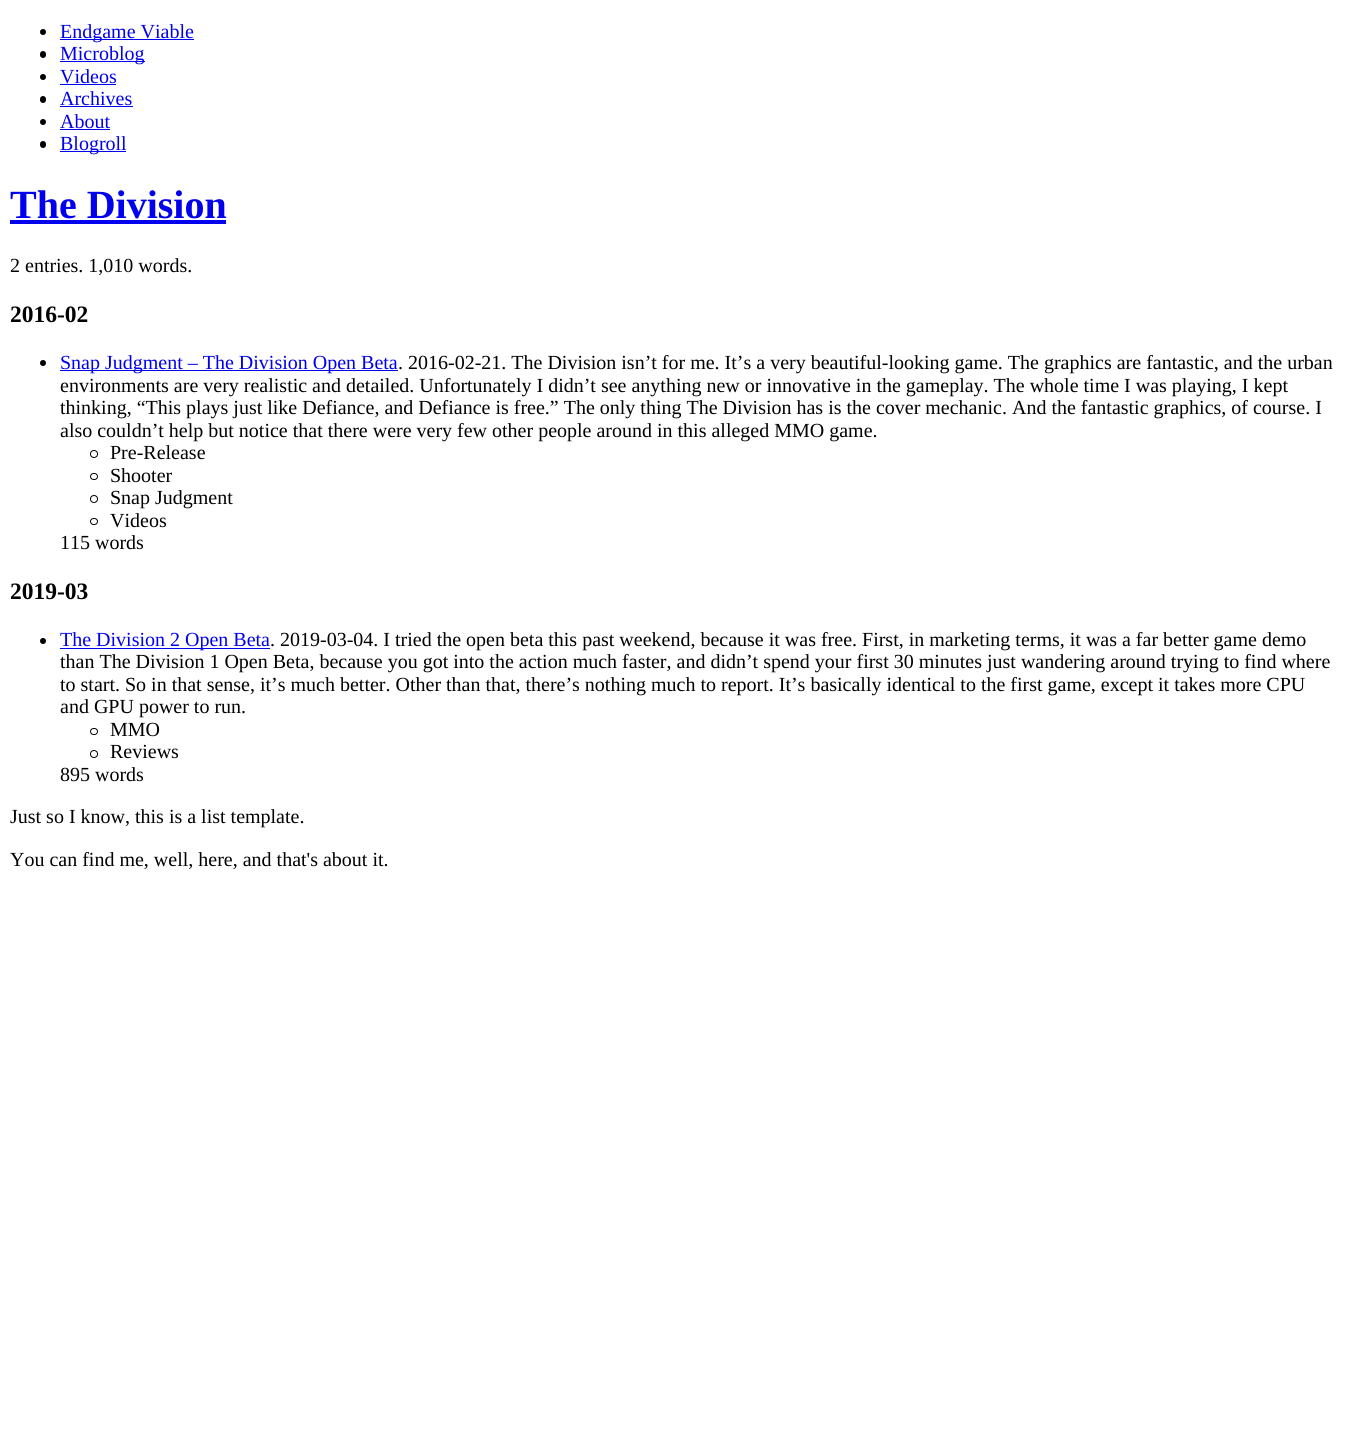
#include <cairo.h>
#include <math.h>
#include <stddef.h>


static void set_color(cairo_t *cr, unsigned color) {
    cairo_set_source_rgb(cr, (color >> 16) / 255.0, (color >> 8 & 255) / 255.0, (color & 255) / 255.0);
}

static void draw_text(cairo_t *cr, double x, double y, const char *s, const char *family, double size, int italic, int bold, unsigned color) {
    cairo_select_font_face(cr, family, italic ? CAIRO_FONT_SLANT_ITALIC : CAIRO_FONT_SLANT_NORMAL,
        bold ? CAIRO_FONT_WEIGHT_BOLD : CAIRO_FONT_WEIGHT_NORMAL);
    cairo_set_font_size(cr, size);
    set_color(cr, color);
    cairo_move_to(cr, x, y);
    cairo_show_text(cr, s);
}

static void fill_rect(cairo_t *cr, double x, double y, double w, double h, unsigned color) {
    set_color(cr, color);
    cairo_rectangle(cr, x, y, w, h);
    cairo_fill(cr);
}

static void rounded_rect(cairo_t *cr, double x, double y, double w, double h, double r) {
    cairo_new_sub_path(cr);
    cairo_arc(cr, x + w - r, y + h - r, r, 0, M_PI / 2);
    cairo_arc(cr, x + r, y + h - r, r, M_PI / 2, M_PI);
    cairo_arc(cr, x + r, y + r, r, M_PI, 1.5 * M_PI);
    cairo_arc(cr, x + w - r, y + r, r, 1.5 * M_PI, 2 * M_PI);
    cairo_close_path(cr);
}

int main(void) {
    cairo_surface_t *surface = cairo_image_surface_create(CAIRO_FORMAT_RGB24, 1348, 1436);
    cairo_t *cr = cairo_create(surface);
    cairo_font_options_t *options = cairo_font_options_create();
    cairo_font_options_set_hint_metrics(options, CAIRO_HINT_METRICS_OFF);
    cairo_font_options_set_hint_style(options, CAIRO_HINT_STYLE_NONE);
    cairo_set_font_options(cr, options);
    cairo_set_miter_limit(cr, 4);
    set_color(cr, 0xFFFFFF);
    cairo_paint(cr);
    set_color(cr, 0x000000);
    cairo_arc(cr, 43, 32, 3, 0, 2 * M_PI);
    cairo_fill(cr);
    fill_rect(cr, 60, 39, 134, 1, 0x0000EE);
    draw_text(cr, 60, 38, "Endgame Viable", "Liberation Serif", 20, 0, 0, 0x0000EE);
    set_color(cr, 0x000000);
    rounded_rect(cr, 40, 51, 6, 7, 3);
    cairo_fill(cr);
    fill_rect(cr, 60, 61, 85, 1, 0x0000EE);
    draw_text(cr, 60, 60, "Microblog", "Liberation Serif", 20, 0, 0, 0x0000EE);
    set_color(cr, 0x000000);
    cairo_new_path(cr);
    cairo_arc(cr, 43, 77, 3, 0, 2 * M_PI);
    cairo_fill(cr);
    draw_text(cr, 60, 83, "Videos", "Liberation Serif", 20, 0, 0, 0x0000EE);
    fill_rect(cr, 60, 84, 56, 1, 0x0000EE);
    set_color(cr, 0x000000);
    rounded_rect(cr, 40, 96, 6, 7, 3);
    cairo_fill(cr);
    draw_text(cr, 60, 105, "Archives", "Liberation Serif", 20, 0, 0, 0x0000EE);
    fill_rect(cr, 60, 106, 73, 1, 0x0000EE);
    set_color(cr, 0x000000);
    cairo_new_path(cr);
    cairo_arc(cr, 43, 122, 3, 0, 2 * M_PI);
    cairo_fill(cr);
    draw_text(cr, 60, 128, "About", "Liberation Serif", 20, 0, 0, 0x0000EE);
    fill_rect(cr, 60, 129, 50, 1, 0x0000EE);
    set_color(cr, 0x000000);
    rounded_rect(cr, 40, 141, 6, 7, 3);
    cairo_fill(cr);
    fill_rect(cr, 60, 151, 66, 1, 0x0000EE);
    draw_text(cr, 60, 150, "Blogroll", "Liberation Serif", 20, 0, 0, 0x0000EE);
    draw_text(cr, 10, 218, "The Division", "Liberation Serif", 40, 0, 1, 0x0000EE);
    fill_rect(cr, 10, 220, 216, 4, 0x0000EE);
    draw_text(cr, 10, 272, "2 entries. 1,010 words.", "Liberation Serif", 20, 0, 0, 0x000000);
    draw_text(cr, 10, 322, "2016-02", "Liberation Serif", 23.5, 0, 1, 0x000000);
    cairo_new_path(cr);
    cairo_arc(cr, 43, 363, 3, 0, 2 * M_PI);
    cairo_fill(cr);
    fill_rect(cr, 60, 370, 338, 1, 0x0000EE);
    draw_text(cr, 60, 369, "Snap Judgment – The Division Open Beta", "Liberation Serif", 20, 0, 0, 0x0000EE);
    draw_text(cr, 398, 369, ". 2016-02-21. The Division isn’t for me. It’s a very beautiful-looking game. The graphics are fantastic, and the urban", "Liberation Serif", 20, 0, 0, 0x000000);
    draw_text(cr, 60, 392, "environments are very realistic and detailed. Unfortunately I didn’t see anything new or innovative in the gameplay. The whole time I was playing, I kept", "Liberation Serif", 20, 0, 0, 0x000000);
    draw_text(cr, 60, 414, "thinking, “This plays just like Defiance, and Defiance is free.” The only thing The Division has is the cover mechanic. And the fantastic graphics, of course. I", "Liberation Serif", 20, 0, 0, 0x000000);
    draw_text(cr, 60, 437, "also couldn’t help but notice that there were very few other people around in this alleged MMO game.", "Liberation Serif", 20, 0, 0, 0x000000);
    cairo_new_path(cr);
    cairo_arc(cr, 94, 454, 3.5, 0, 2 * M_PI);
    cairo_set_line_width(cr, 1);
    cairo_stroke(cr);
    draw_text(cr, 110, 459, "Pre-Release", "Liberation Serif", 20, 0, 0, 0x000000);
    rounded_rect(cr, 90.5, 473.5, 7, 6, 3);
    cairo_stroke(cr);
    draw_text(cr, 110, 482, "Shooter", "Liberation Serif", 20, 0, 0, 0x000000);
    cairo_new_path(cr);
    cairo_arc(cr, 94, 499, 3.5, 0, 2 * M_PI);
    cairo_stroke(cr);
    draw_text(cr, 110, 504, "Snap Judgment", "Liberation Serif", 20, 0, 0, 0x000000);
    rounded_rect(cr, 90.5, 518.5, 7, 6, 3);
    cairo_stroke(cr);
    draw_text(cr, 110, 527, "Videos", "Liberation Serif", 20, 0, 0, 0x000000);
    draw_text(cr, 60, 549, "115 words", "Liberation Serif", 20, 0, 0, 0x000000);
    draw_text(cr, 10, 599, "2019-03", "Liberation Serif", 23.5, 0, 1, 0x000000);
    cairo_new_path(cr);
    cairo_arc(cr, 43, 641, 3, 0, 2 * M_PI);
    cairo_fill(cr);
    fill_rect(cr, 60, 648, 210, 1, 0x0000EE);
    draw_text(cr, 60, 646, "The Division 2 Open Beta", "Liberation Serif", 20, 0, 0, 0x0000EE);
    draw_text(cr, 270, 646, ". 2019-03-04. I tried the open beta this past weekend, because it was free. First, in marketing terms, it was a far better game demo", "Liberation Serif", 20, 0, 0, 0x000000);
    draw_text(cr, 60, 668, "than The Division 1 Open Beta, because you got into the action much faster, and didn’t spend your first 30 minutes just wandering around trying to find where", "Liberation Serif", 20, 0, 0, 0x000000);
    draw_text(cr, 60, 691, "to start. So in that sense, it’s much better. Other than that, there’s nothing much to report. It’s basically identical to the first game, except it takes more CPU", "Liberation Serif", 20, 0, 0, 0x000000);
    draw_text(cr, 60, 713, "and GPU power to run.", "Liberation Serif", 20, 0, 0, 0x000000);
    rounded_rect(cr, 90.5, 728.5, 7, 6, 3);
    cairo_stroke(cr);
    draw_text(cr, 110, 736, "MMO", "Liberation Serif", 20, 0, 0, 0x000000);
    cairo_new_path(cr);
    cairo_arc(cr, 94, 754, 3.5, 0, 2 * M_PI);
    cairo_stroke(cr);
    draw_text(cr, 110, 758, "Reviews", "Liberation Serif", 20, 0, 0, 0x000000);
    draw_text(cr, 60, 781, "895 words", "Liberation Serif", 20, 0, 0, 0x000000);
    draw_text(cr, 10, 823, "Just so I know, this is a list template.", "Liberation Serif", 20, 0, 0, 0x000000);
    draw_text(cr, 10, 866, "You can find me, well, here, and that's about it.", "Liberation Serif", 20, 0, 0, 0x000000);
    cairo_surface_write_to_png(surface, "output.png");
    cairo_font_options_destroy(options);
    cairo_destroy(cr);
    cairo_surface_destroy(surface);
    return 0;
}
